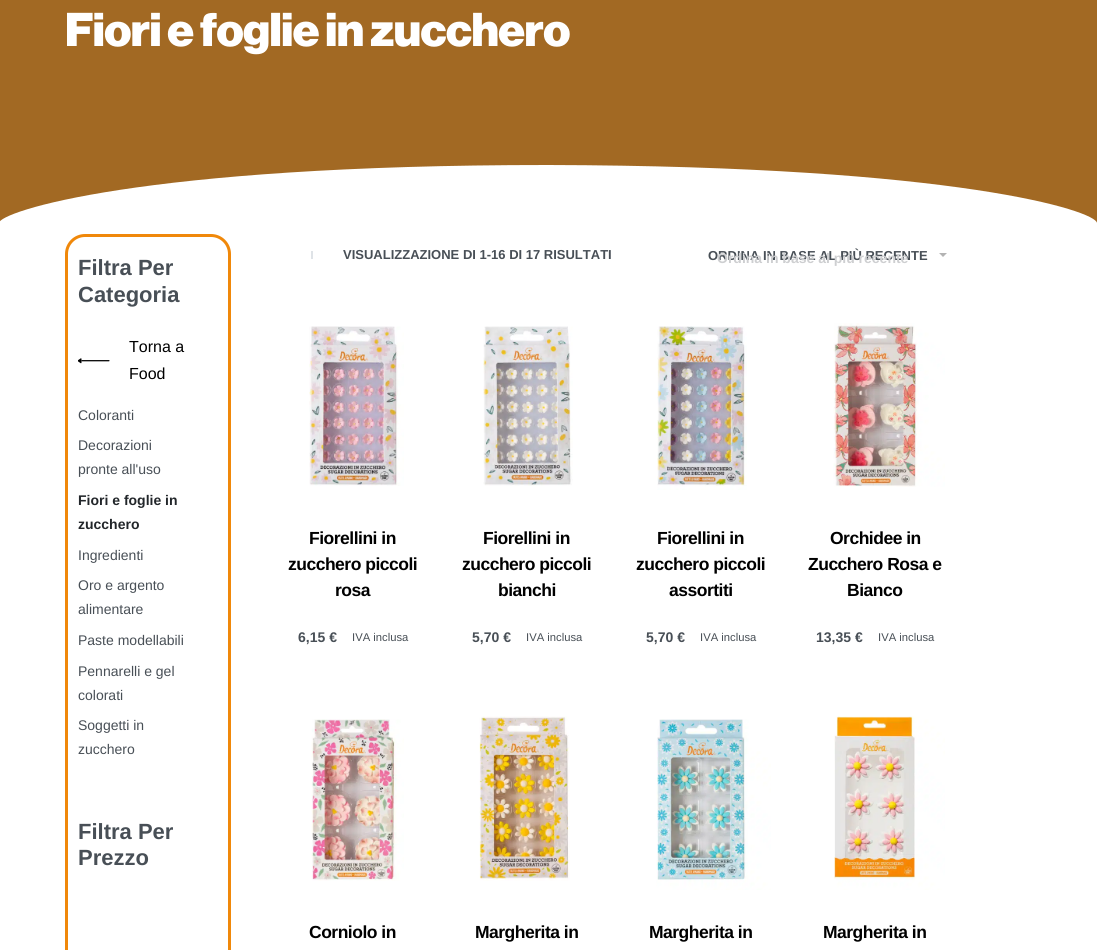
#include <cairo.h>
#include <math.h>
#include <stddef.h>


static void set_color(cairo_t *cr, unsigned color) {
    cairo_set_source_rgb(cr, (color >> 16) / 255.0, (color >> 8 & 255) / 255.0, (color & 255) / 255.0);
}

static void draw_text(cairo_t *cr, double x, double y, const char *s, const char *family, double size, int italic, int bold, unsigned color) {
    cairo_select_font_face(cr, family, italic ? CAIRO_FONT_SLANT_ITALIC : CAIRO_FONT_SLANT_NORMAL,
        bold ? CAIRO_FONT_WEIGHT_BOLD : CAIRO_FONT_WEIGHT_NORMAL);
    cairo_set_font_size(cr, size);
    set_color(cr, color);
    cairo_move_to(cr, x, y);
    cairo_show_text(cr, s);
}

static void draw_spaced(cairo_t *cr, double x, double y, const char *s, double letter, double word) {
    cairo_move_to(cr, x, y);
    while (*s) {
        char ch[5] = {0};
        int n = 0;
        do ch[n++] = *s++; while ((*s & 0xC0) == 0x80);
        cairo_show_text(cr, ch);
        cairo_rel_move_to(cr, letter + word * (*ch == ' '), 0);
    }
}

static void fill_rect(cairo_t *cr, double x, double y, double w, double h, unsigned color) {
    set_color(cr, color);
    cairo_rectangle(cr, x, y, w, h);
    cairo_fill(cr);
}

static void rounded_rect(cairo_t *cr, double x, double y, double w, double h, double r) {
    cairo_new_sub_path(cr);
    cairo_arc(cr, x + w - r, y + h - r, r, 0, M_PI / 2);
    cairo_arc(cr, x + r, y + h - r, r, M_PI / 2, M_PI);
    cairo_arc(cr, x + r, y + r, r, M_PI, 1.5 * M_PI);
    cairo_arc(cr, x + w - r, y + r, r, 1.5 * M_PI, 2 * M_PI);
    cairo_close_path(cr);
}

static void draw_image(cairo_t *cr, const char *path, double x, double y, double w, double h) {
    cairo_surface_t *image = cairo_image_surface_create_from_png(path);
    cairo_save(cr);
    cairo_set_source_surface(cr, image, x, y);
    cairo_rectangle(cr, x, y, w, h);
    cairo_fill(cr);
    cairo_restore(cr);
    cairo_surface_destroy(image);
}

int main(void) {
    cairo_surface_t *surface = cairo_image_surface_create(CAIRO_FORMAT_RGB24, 1097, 950);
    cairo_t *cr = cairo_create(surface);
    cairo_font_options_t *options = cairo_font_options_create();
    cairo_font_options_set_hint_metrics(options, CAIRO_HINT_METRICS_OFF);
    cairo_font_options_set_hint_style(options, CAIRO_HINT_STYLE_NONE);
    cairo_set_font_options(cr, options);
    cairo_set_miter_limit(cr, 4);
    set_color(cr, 0xFFFFFF);
    cairo_paint(cr);
    fill_rect(cr, 0, 0, 1097, 223, 0xA26923);
    cairo_select_font_face(cr, "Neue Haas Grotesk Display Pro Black", CAIRO_FONT_SLANT_NORMAL, CAIRO_FONT_WEIGHT_NORMAL);
    cairo_set_font_size(cr, 46.4);
    set_color(cr, 0xFFFFFF);
    draw_spaced(cr, 65, 46, "Fiori e foglie in zucchero", -0.5, 0);
    cairo_new_path(cr);
    cairo_move_to(cr, -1, 223);
    cairo_line_to(cr, -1, 225);
    cairo_line_to(cr, 1097, 225);
    cairo_line_to(cr, 1097, 223);
    cairo_curve_to(cr, 1096, 211, 958, 166, 548, 165);
    cairo_curve_to(cr, 138, 165, -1, 212, -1, 223);
    cairo_close_path(cr);
    cairo_fill(cr);
    rounded_rect(cr, 66.5, 235.5, 163, 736, 18.5);
    set_color(cr, 0xF0880A);
    cairo_set_line_width(cr, 3);
    cairo_stroke(cr);
    draw_text(cr, 78, 275, "Filtra Per", "Liberation Sans", 22, 0, 1, 0x484F56);
    draw_text(cr, 78, 302, "Categoria", "Liberation Sans", 22, 0, 1, 0x484F56);
    draw_image(cr, "assets/img1.png", 78, 358, 32, 6);
    draw_text(cr, 129, 352, "Torna a", "Liberation Sans", 16, 0, 0, 0x000000);
    draw_text(cr, 129, 379, "Food", "Liberation Sans", 16, 0, 0, 0x000000);
    draw_text(cr, 78, 420, "Coloranti", "Liberation Sans", 14, 0, 0, 0x484F56);
    draw_text(cr, 78, 450, "Decorazioni", "Liberation Sans", 14, 0, 0, 0x484F56);
    draw_text(cr, 78, 474, "pronte all'uso", "Liberation Sans", 14, 0, 0, 0x484F56);
    draw_text(cr, 78, 505, "Fiori e foglie in", "Liberation Sans", 14, 0, 1, 0x22262A);
    draw_text(cr, 78, 529, "zucchero", "Liberation Sans", 14, 0, 1, 0x22262A);
    draw_text(cr, 78, 560, "Ingredienti", "Liberation Sans", 14, 0, 0, 0x484F56);
    draw_text(cr, 78, 590, "Oro e argento", "Liberation Sans", 14, 0, 0, 0x484F56);
    draw_text(cr, 78, 614, "alimentare", "Liberation Sans", 14, 0, 0, 0x484F56);
    draw_text(cr, 78, 645, "Paste modellabili", "Liberation Sans", 14, 0, 0, 0x484F56);
    draw_text(cr, 78, 676, "Pennarelli e gel", "Liberation Sans", 14, 0, 0, 0x484F56);
    draw_text(cr, 78, 700, "colorati", "Liberation Sans", 14, 0, 0, 0x484F56);
    draw_text(cr, 78, 730, "Soggetti in", "Liberation Sans", 14, 0, 0, 0x484F56);
    draw_text(cr, 78, 754, "zucchero", "Liberation Sans", 14, 0, 0, 0x484F56);
    draw_text(cr, 78, 839, "Filtra Per", "Liberation Sans", 22, 0, 1, 0x484F56);
    draw_text(cr, 78, 865, "Prezzo", "Liberation Sans", 22, 0, 1, 0x484F56);
    fill_rect(cr, 311, 251, 2, 8, 0xDFE3E7);
    draw_text(cr, 343, 259, "VISUALIZZAZIONE DI 1-16 DI 17 RISULTATI", "Liberation Sans", 13, 0, 1, 0x484F56);
    draw_text(cr, 708, 260, "ORDINA IN BASE AL PIÙ RECENTE", "Liberation Sans", 13, 0, 1, 0x484F56);
    set_color(cr, 0xB3B3B3);
    cairo_new_path(cr);
    cairo_move_to(cr, 939, 253);
    cairo_line_to(cr, 947, 253);
    cairo_line_to(cr, 943, 257);
    cairo_close_path(cr);
    cairo_fill(cr);
    draw_text(cr, 717, 263, "Ordina in base al più recente", "Liberation Sans", 14, 0, 1, 0xCECFD1);
    draw_image(cr, "assets/img2.png", 309, 326, 95, 160);
    cairo_set_font_size(cr, 17.5);
    set_color(cr, 0x000000);
    draw_spaced(cr, 309, 544, "Fiorellini in", -0.5, 0);
    draw_spaced(cr, 288, 570, "zucchero piccoli", -0.5, 0);
    draw_spaced(cr, 335, 596, "rosa", -0.5, 0);
    draw_text(cr, 298, 642, "6,15 €", "Liberation Sans", 14, 0, 1, 0x484F56);
    draw_text(cr, 352, 641, "IVA inclusa", "Liberation Sans", 11.25, 0, 0, 0x484F56);
    draw_image(cr, "assets/img3.png", 483, 326, 90, 160);
    cairo_select_font_face(cr, "Liberation Sans", CAIRO_FONT_SLANT_NORMAL, CAIRO_FONT_WEIGHT_BOLD);
    cairo_set_font_size(cr, 17.5);
    set_color(cr, 0x000000);
    draw_spaced(cr, 483, 544, "Fiorellini in", -0.5, 0);
    draw_spaced(cr, 462, 570, "zucchero piccoli", -0.5, 0);
    draw_spaced(cr, 498, 596, "bianchi", -0.5, 0);
    draw_text(cr, 472, 642, "5,70 €", "Liberation Sans", 14, 0, 1, 0x484F56);
    draw_text(cr, 526, 641, "IVA inclusa", "Liberation Sans", 11.25, 0, 0, 0x484F56);
    draw_image(cr, "assets/img4.png", 657, 326, 90, 164);
    cairo_select_font_face(cr, "Liberation Sans", CAIRO_FONT_SLANT_NORMAL, CAIRO_FONT_WEIGHT_BOLD);
    cairo_set_font_size(cr, 17.5);
    set_color(cr, 0x000000);
    draw_spaced(cr, 657, 544, "Fiorellini in", -0.5, 0);
    draw_spaced(cr, 636, 570, "zucchero piccoli", -0.5, 0);
    draw_spaced(cr, 669, 596, "assortiti", -0.5, 0);
    draw_text(cr, 646, 642, "5,70 €", "Liberation Sans", 14, 0, 1, 0x484F56);
    draw_text(cr, 700, 641, "IVA inclusa", "Liberation Sans", 11.25, 0, 0, 0x484F56);
    draw_image(cr, "assets/img5.png", 833, 323, 112, 164);
    cairo_select_font_face(cr, "Liberation Sans", CAIRO_FONT_SLANT_NORMAL, CAIRO_FONT_WEIGHT_BOLD);
    cairo_set_font_size(cr, 17.5);
    set_color(cr, 0x000000);
    draw_spaced(cr, 830, 544, "Orchidee in", -0.5, 0);
    draw_spaced(cr, 808, 570, "Zucchero Rosa e", -0.5, 0);
    draw_spaced(cr, 847, 596, "Bianco", -0.5, 0);
    draw_text(cr, 816, 642, "13,35 €", "Liberation Sans", 14, 0, 1, 0x484F56);
    draw_text(cr, 878, 641, "IVA inclusa", "Liberation Sans", 11.25, 0, 0, 0x484F56);
    draw_image(cr, "assets/img6.png", 311, 719, 93, 162);
    cairo_select_font_face(cr, "Liberation Sans", CAIRO_FONT_SLANT_NORMAL, CAIRO_FONT_WEIGHT_BOLD);
    cairo_set_font_size(cr, 17.5);
    set_color(cr, 0x000000);
    draw_spaced(cr, 309, 938, "Corniolo in", -0.5, 0);
    draw_image(cr, "assets/img7.png", 479, 716, 91, 165);
    draw_spaced(cr, 475, 938, "Margherita in", -0.5, 0);
    draw_image(cr, "assets/img8.png", 656, 719, 115, 171);
    draw_spaced(cr, 649, 938, "Margherita in", -0.5, 0);
    draw_image(cr, "assets/img9.png", 834, 716, 111, 174);
    draw_spaced(cr, 823, 938, "Margherita in", -0.5, 0);
    cairo_surface_write_to_png(surface, "output.png");
    cairo_font_options_destroy(options);
    cairo_destroy(cr);
    cairo_surface_destroy(surface);
    return 0;
}
